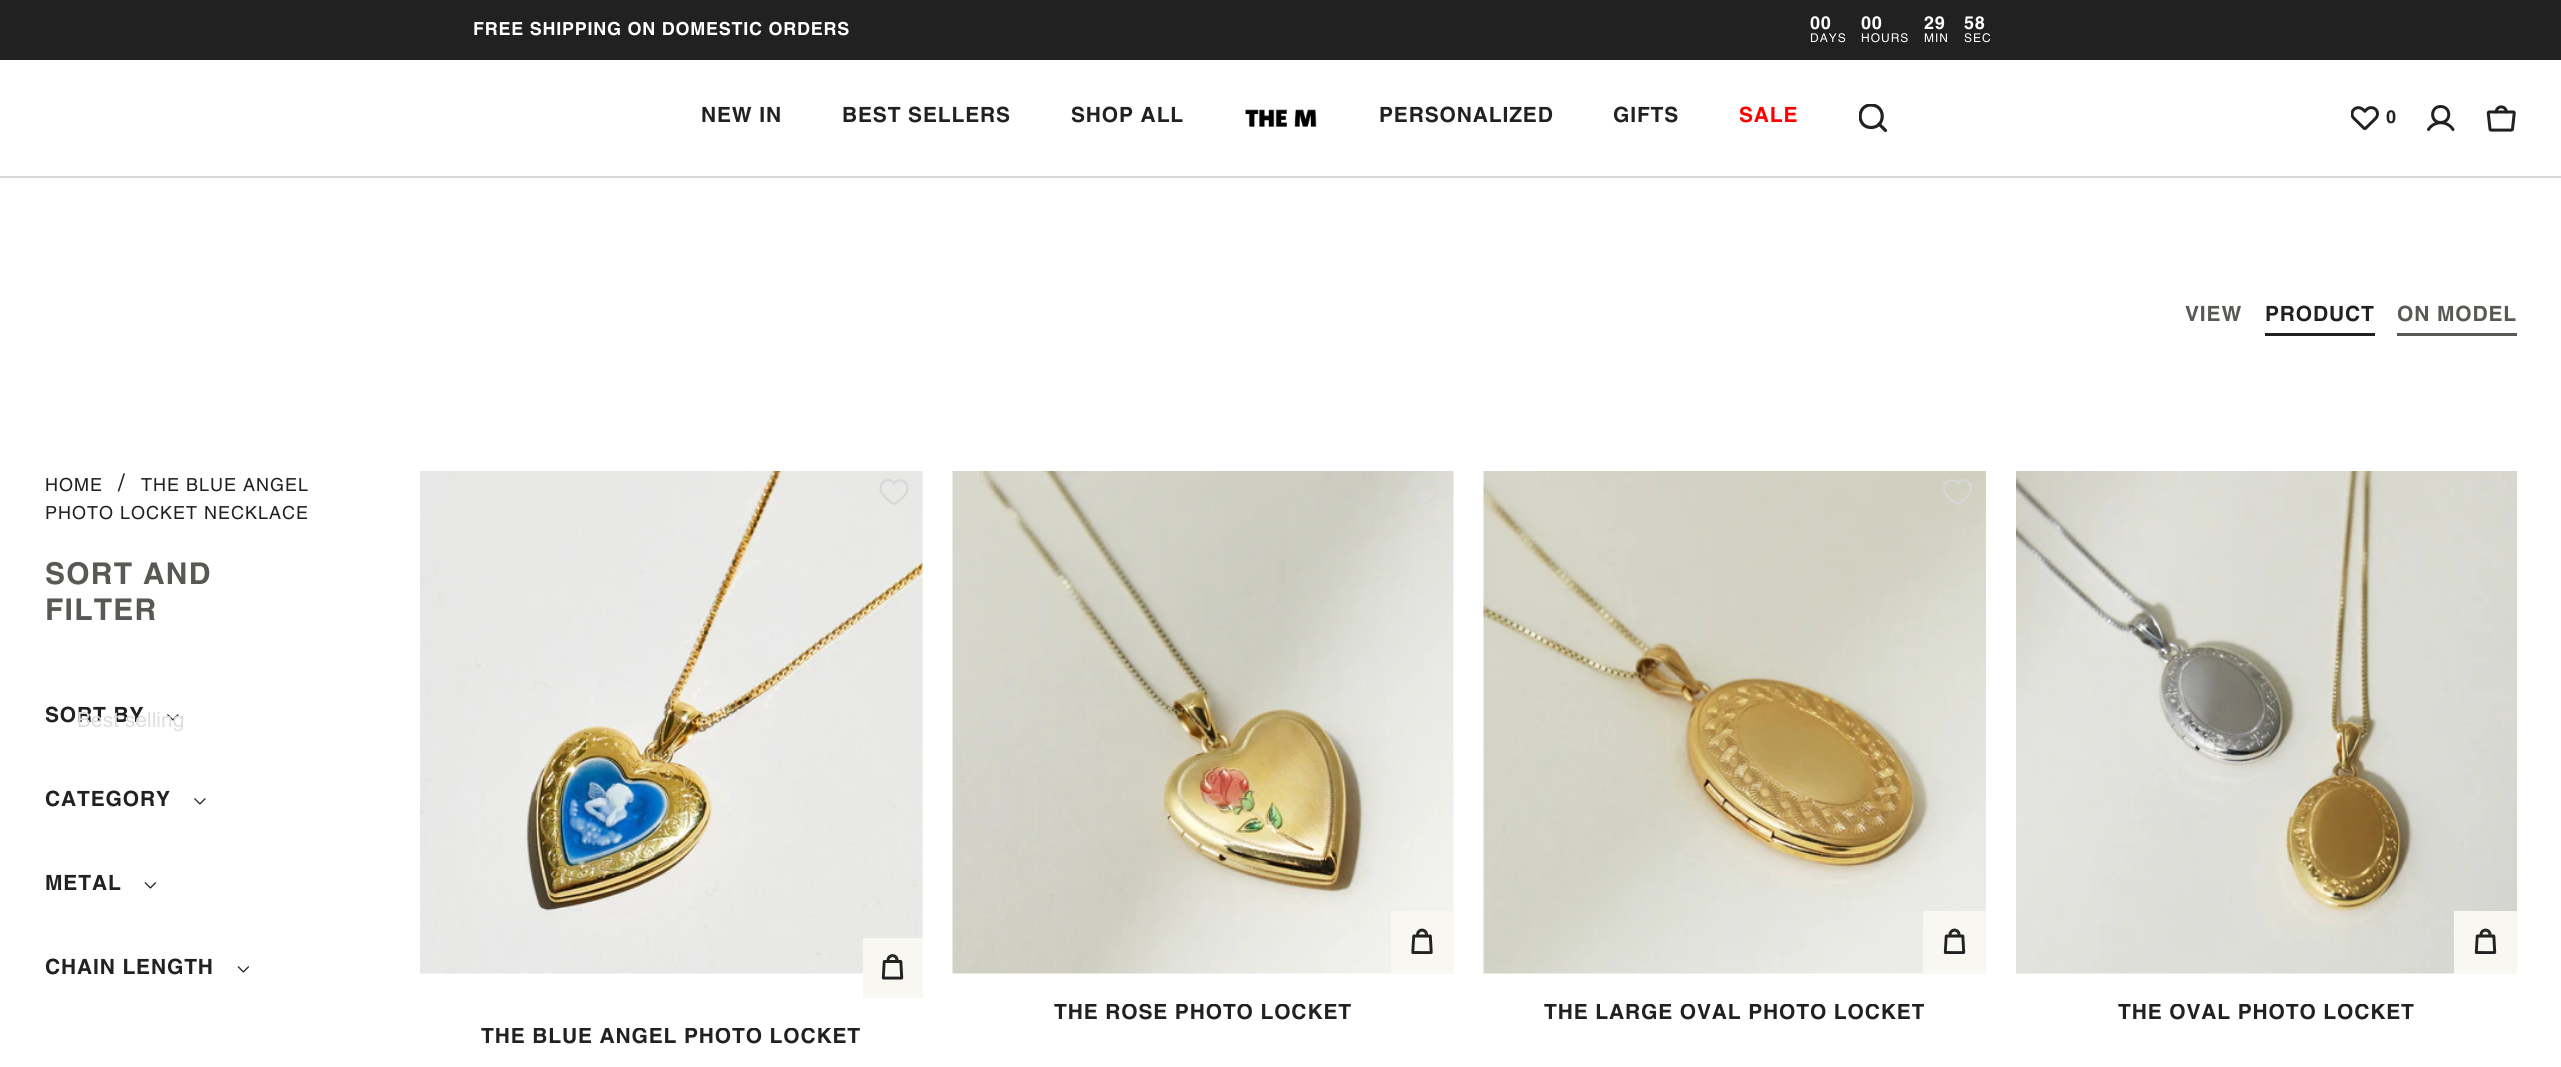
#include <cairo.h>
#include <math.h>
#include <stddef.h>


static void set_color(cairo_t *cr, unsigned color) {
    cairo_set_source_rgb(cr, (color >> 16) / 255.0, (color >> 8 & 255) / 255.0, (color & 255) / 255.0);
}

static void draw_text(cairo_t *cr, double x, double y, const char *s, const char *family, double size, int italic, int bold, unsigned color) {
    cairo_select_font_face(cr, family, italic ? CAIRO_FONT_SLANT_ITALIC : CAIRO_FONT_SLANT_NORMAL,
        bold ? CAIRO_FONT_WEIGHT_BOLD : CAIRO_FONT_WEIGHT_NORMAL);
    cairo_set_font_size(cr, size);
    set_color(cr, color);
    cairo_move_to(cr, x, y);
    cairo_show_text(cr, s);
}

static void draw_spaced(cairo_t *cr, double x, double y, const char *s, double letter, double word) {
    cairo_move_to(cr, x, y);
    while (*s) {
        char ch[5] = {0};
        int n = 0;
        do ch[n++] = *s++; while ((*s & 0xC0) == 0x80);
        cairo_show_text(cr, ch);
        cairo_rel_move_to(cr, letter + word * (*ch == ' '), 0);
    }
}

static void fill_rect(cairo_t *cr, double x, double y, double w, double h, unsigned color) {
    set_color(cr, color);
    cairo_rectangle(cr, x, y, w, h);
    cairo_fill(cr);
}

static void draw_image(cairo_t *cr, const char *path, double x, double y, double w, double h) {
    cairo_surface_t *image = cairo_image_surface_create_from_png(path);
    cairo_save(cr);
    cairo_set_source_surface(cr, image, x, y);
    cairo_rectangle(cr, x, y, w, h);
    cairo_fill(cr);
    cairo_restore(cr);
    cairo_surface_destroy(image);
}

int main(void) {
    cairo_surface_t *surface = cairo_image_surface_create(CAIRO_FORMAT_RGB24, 2561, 1067);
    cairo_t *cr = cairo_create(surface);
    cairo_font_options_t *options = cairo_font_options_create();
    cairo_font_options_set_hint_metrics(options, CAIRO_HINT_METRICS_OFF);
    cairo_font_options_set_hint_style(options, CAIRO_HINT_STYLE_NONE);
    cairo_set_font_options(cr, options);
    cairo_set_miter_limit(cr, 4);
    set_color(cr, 0xFFFFFF);
    cairo_paint(cr);
    fill_rect(cr, 0, 0, 2561, 60, 0x212121);
    cairo_select_font_face(cr, "Helvetica", CAIRO_FONT_SLANT_NORMAL, CAIRO_FONT_WEIGHT_BOLD);
    cairo_set_font_size(cr, 18);
    set_color(cr, 0xFFFFFF);
    draw_spaced(cr, 473, 35, "FREE SHIPPING ON DOMESTIC ORDERS", 0.75, 0);
    draw_spaced(cr, 1810, 29, "00", 0.75, 0);
    cairo_select_font_face(cr, "Helvetica", CAIRO_FONT_SLANT_NORMAL, CAIRO_FONT_WEIGHT_NORMAL);
    cairo_set_font_size(cr, 12);
    draw_spaced(cr, 1810, 42, "DAYS", 1, 0);
    cairo_select_font_face(cr, "Helvetica", CAIRO_FONT_SLANT_NORMAL, CAIRO_FONT_WEIGHT_BOLD);
    cairo_set_font_size(cr, 18);
    draw_spaced(cr, 1861, 29, "00", 0.75, 0);
    cairo_select_font_face(cr, "Helvetica", CAIRO_FONT_SLANT_NORMAL, CAIRO_FONT_WEIGHT_NORMAL);
    cairo_set_font_size(cr, 12);
    draw_spaced(cr, 1861, 42, "HOURS", 1, 0);
    cairo_select_font_face(cr, "Helvetica", CAIRO_FONT_SLANT_NORMAL, CAIRO_FONT_WEIGHT_BOLD);
    cairo_set_font_size(cr, 18);
    draw_spaced(cr, 1924, 29, "29", 0.75, 0);
    cairo_select_font_face(cr, "Helvetica", CAIRO_FONT_SLANT_NORMAL, CAIRO_FONT_WEIGHT_NORMAL);
    cairo_set_font_size(cr, 12);
    draw_spaced(cr, 1924, 42, "MIN", 1, 0);
    cairo_select_font_face(cr, "Helvetica", CAIRO_FONT_SLANT_NORMAL, CAIRO_FONT_WEIGHT_BOLD);
    cairo_set_font_size(cr, 18);
    draw_spaced(cr, 1964, 29, "58", 0.75, 0);
    cairo_select_font_face(cr, "Helvetica", CAIRO_FONT_SLANT_NORMAL, CAIRO_FONT_WEIGHT_NORMAL);
    cairo_set_font_size(cr, 12);
    draw_spaced(cr, 1964, 42, "SEC", 1, 0);
    fill_rect(cr, 0, 176, 2561, 2, 0xD7D7D7);
    cairo_select_font_face(cr, "Helvetica", CAIRO_FONT_SLANT_NORMAL, CAIRO_FONT_WEIGHT_BOLD);
    cairo_set_font_size(cr, 21);
    set_color(cr, 0x212121);
    draw_spaced(cr, 701, 122, "NEW IN", 0.85, 0);
    draw_spaced(cr, 842, 122, "BEST SELLERS", 0.85, 0);
    draw_spaced(cr, 1071, 122, "SHOP ALL", 0.85, 0);
    draw_image(cr, "assets/img1.png", 1245, 109, 72, 18);
    draw_spaced(cr, 1379, 122, "PERSONALIZED", 0.85, 0);
    draw_spaced(cr, 1613, 122, "GIFTS", 0.85, 0);
    set_color(cr, 0xFF0000);
    draw_spaced(cr, 1739, 122, "SALE", 0.85, 0);
    cairo_save(cr);
    cairo_rectangle(cr, 1859, 104, 30, 30);
    cairo_clip(cr);
    cairo_new_path(cr);
    cairo_move_to(cr, 1871, 127.5);
    cairo_curve_to(cr, 1886, 127.5, 1886, 105, 1871, 105);
    cairo_curve_to(cr, 1856.5, 105, 1856.5, 127.5, 1871, 127.5);
    cairo_close_path(cr);
    set_color(cr, 0x212121);
    cairo_set_line_width(cr, 3.2);
    cairo_set_line_cap(cr, CAIRO_LINE_CAP_ROUND);
    cairo_set_line_join(cr, CAIRO_LINE_JOIN_ROUND);
    cairo_stroke(cr);
    cairo_restore(cr);
    cairo_new_path(cr);
    cairo_move_to(cr, 1879, 124);
    cairo_line_to(cr, 1885.5, 130.5);
    set_color(cr, 0x212121);
    cairo_set_line_width(cr, 3.2);
    cairo_set_line_cap(cr, CAIRO_LINE_CAP_ROUND);
    cairo_set_line_join(cr, CAIRO_LINE_JOIN_ROUND);
    cairo_stroke(cr);
    draw_image(cr, "assets/img2.png", 2351, 106, 28, 25);
    cairo_set_font_size(cr, 18);
    draw_spaced(cr, 2386, 123, "0", 1, 0);
    cairo_new_path(cr);
    cairo_move_to(cr, 2440.5, 122.5);
    cairo_curve_to(cr, 2451.5, 122.5, 2451.5, 106.5, 2440.5, 106.5);
    cairo_curve_to(cr, 2430, 106.5, 2430, 122.5, 2440.5, 122.5);
    cairo_close_path(cr);
    cairo_set_line_width(cr, 3);
    cairo_set_line_cap(cr, CAIRO_LINE_CAP_BUTT);
    cairo_set_line_join(cr, CAIRO_LINE_JOIN_MITER);
    cairo_stroke(cr);
    cairo_new_path(cr);
    cairo_move_to(cr, 2428.5, 129.5);
    cairo_curve_to(cr, 2434, 120.5, 2447.5, 120.5, 2453, 129.5);
    cairo_set_line_cap(cr, CAIRO_LINE_CAP_ROUND);
    cairo_set_line_join(cr, CAIRO_LINE_JOIN_ROUND);
    cairo_stroke(cr);
    draw_image(cr, "assets/img3.png", 2486, 105, 30, 27);
    cairo_set_font_size(cr, 21);
    set_color(cr, 0x5A5854);
    draw_spaced(cr, 2185, 321, "VIEW", 0.85, 0);
    set_color(cr, 0x212121);
    draw_spaced(cr, 2265, 321, "PRODUCT", 0.85, 0);
    fill_rect(cr, 2265, 333, 110, 3, 0x212121);
    set_color(cr, 0x5A5854);
    draw_spaced(cr, 2397, 321, "ON MODEL", 0.85, 0);
    fill_rect(cr, 2397, 333, 120, 3, 0x5A5854);
    cairo_select_font_face(cr, "Helvetica", CAIRO_FONT_SLANT_NORMAL, CAIRO_FONT_WEIGHT_NORMAL);
    cairo_set_font_size(cr, 18);
    set_color(cr, 0x212121);
    draw_spaced(cr, 45, 491, "HOME", 1, 0);
    cairo_set_font_size(cr, 24);
    draw_spaced(cr, 118, 491, "/", 1, 0);
    cairo_set_font_size(cr, 18);
    draw_spaced(cr, 141, 491, "THE BLUE ANGEL", 1, 0);
    draw_spaced(cr, 45, 519, "PHOTO LOCKET NECKLACE", 1, 0);
    cairo_select_font_face(cr, "Helvetica", CAIRO_FONT_SLANT_NORMAL, CAIRO_FONT_WEIGHT_BOLD);
    cairo_set_font_size(cr, 30);
    set_color(cr, 0x5A5854);
    draw_spaced(cr, 45, 584, "SORT AND", 1.25, 0);
    draw_spaced(cr, 45, 620, "FILTER", 1.25, 0);
    cairo_set_font_size(cr, 21);
    set_color(cr, 0x212121);
    draw_spaced(cr, 45, 722, "SORT BY", 0.85, 0);
    draw_image(cr, "assets/img4.png", 167, 714, 12, 7);
    cairo_save(cr);
    cairo_rectangle(cr, 77, 707, 175, 24);
    cairo_clip(cr);
    draw_text(cr, 77, 727, "Best selling", "Arial", 21, 0, 0, 0xDEDEDE);
    cairo_restore(cr);
    draw_spaced(cr, 45, 806, "CATEGORY", 0.85, 0);
    draw_image(cr, "assets/img4.png", 194, 798, 12, 7);
    draw_spaced(cr, 45, 890, "METAL", 0.85, 0);
    draw_image(cr, "assets/img5.png", 144, 882, 13, 7);
    draw_spaced(cr, 45, 974, "CHAIN LENGTH", 0.85, 0);
    draw_image(cr, "assets/img6.png", 237, 966, 12, 7);
    draw_image(cr, "assets/img7.png", 952, 471, 502, 503);
    fill_rect(cr, 1391, 911, 63, 63, 0xF9F7F2);
    draw_image(cr, "assets/img8.png", 1411, 928, 22, 26);
    draw_image(cr, "assets/img9.png", 1410, 479, 29, 26);
    cairo_save(cr);
    cairo_rectangle(cr, 953, 1004, 501, 48);
    cairo_clip(cr);
    set_color(cr, 0x212121);
    draw_spaced(cr, 1054, 1019, "THE ROSE PHOTO LOCKET", 0.85, 0);
    cairo_restore(cr);
    draw_image(cr, "assets/img10.png", 1483, 471, 503, 503);
    fill_rect(cr, 1923, 911, 63, 63, 0xF9F7F2);
    draw_image(cr, "assets/img11.png", 1943, 928, 23, 26);
    draw_image(cr, "assets/img12.png", 1943, 479, 29, 26);
    cairo_save(cr);
    cairo_rectangle(cr, 1484, 1004, 502, 48);
    cairo_clip(cr);
    set_color(cr, 0x212121);
    draw_spaced(cr, 1544, 1019, "THE LARGE OVAL PHOTO LOCKET", 0.85, 0);
    cairo_restore(cr);
    draw_image(cr, "assets/img13.png", 2016, 471, 501, 503);
    fill_rect(cr, 2454, 911, 63, 63, 0xF9F7F2);
    draw_image(cr, "assets/img11.png", 2474, 928, 23, 26);
    draw_image(cr, "assets/img14.png", 2474, 479, 29, 26);
    cairo_save(cr);
    cairo_rectangle(cr, 2016, 1004, 501, 48);
    cairo_clip(cr);
    set_color(cr, 0x212121);
    draw_spaced(cr, 2118, 1019, "THE OVAL PHOTO LOCKET", 0.85, 0);
    cairo_restore(cr);
    draw_image(cr, "assets/img15.png", 420, 471, 503, 503);
    fill_rect(cr, 863, 938, 60, 60, 0xF9F7F2);
    draw_image(cr, "assets/img16.png", 881, 954, 23, 26);
    draw_image(cr, "assets/img17.png", 879, 479, 30, 26);
    cairo_save(cr);
    cairo_rectangle(cr, 420, 1028, 503, 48);
    cairo_clip(cr);
    set_color(cr, 0x212121);
    draw_spaced(cr, 481, 1043, "THE BLUE ANGEL PHOTO LOCKET", 0.85, 0);
    cairo_restore(cr);
    cairo_surface_write_to_png(surface, "output.png");
    cairo_font_options_destroy(options);
    cairo_destroy(cr);
    cairo_surface_destroy(surface);
    return 0;
}
